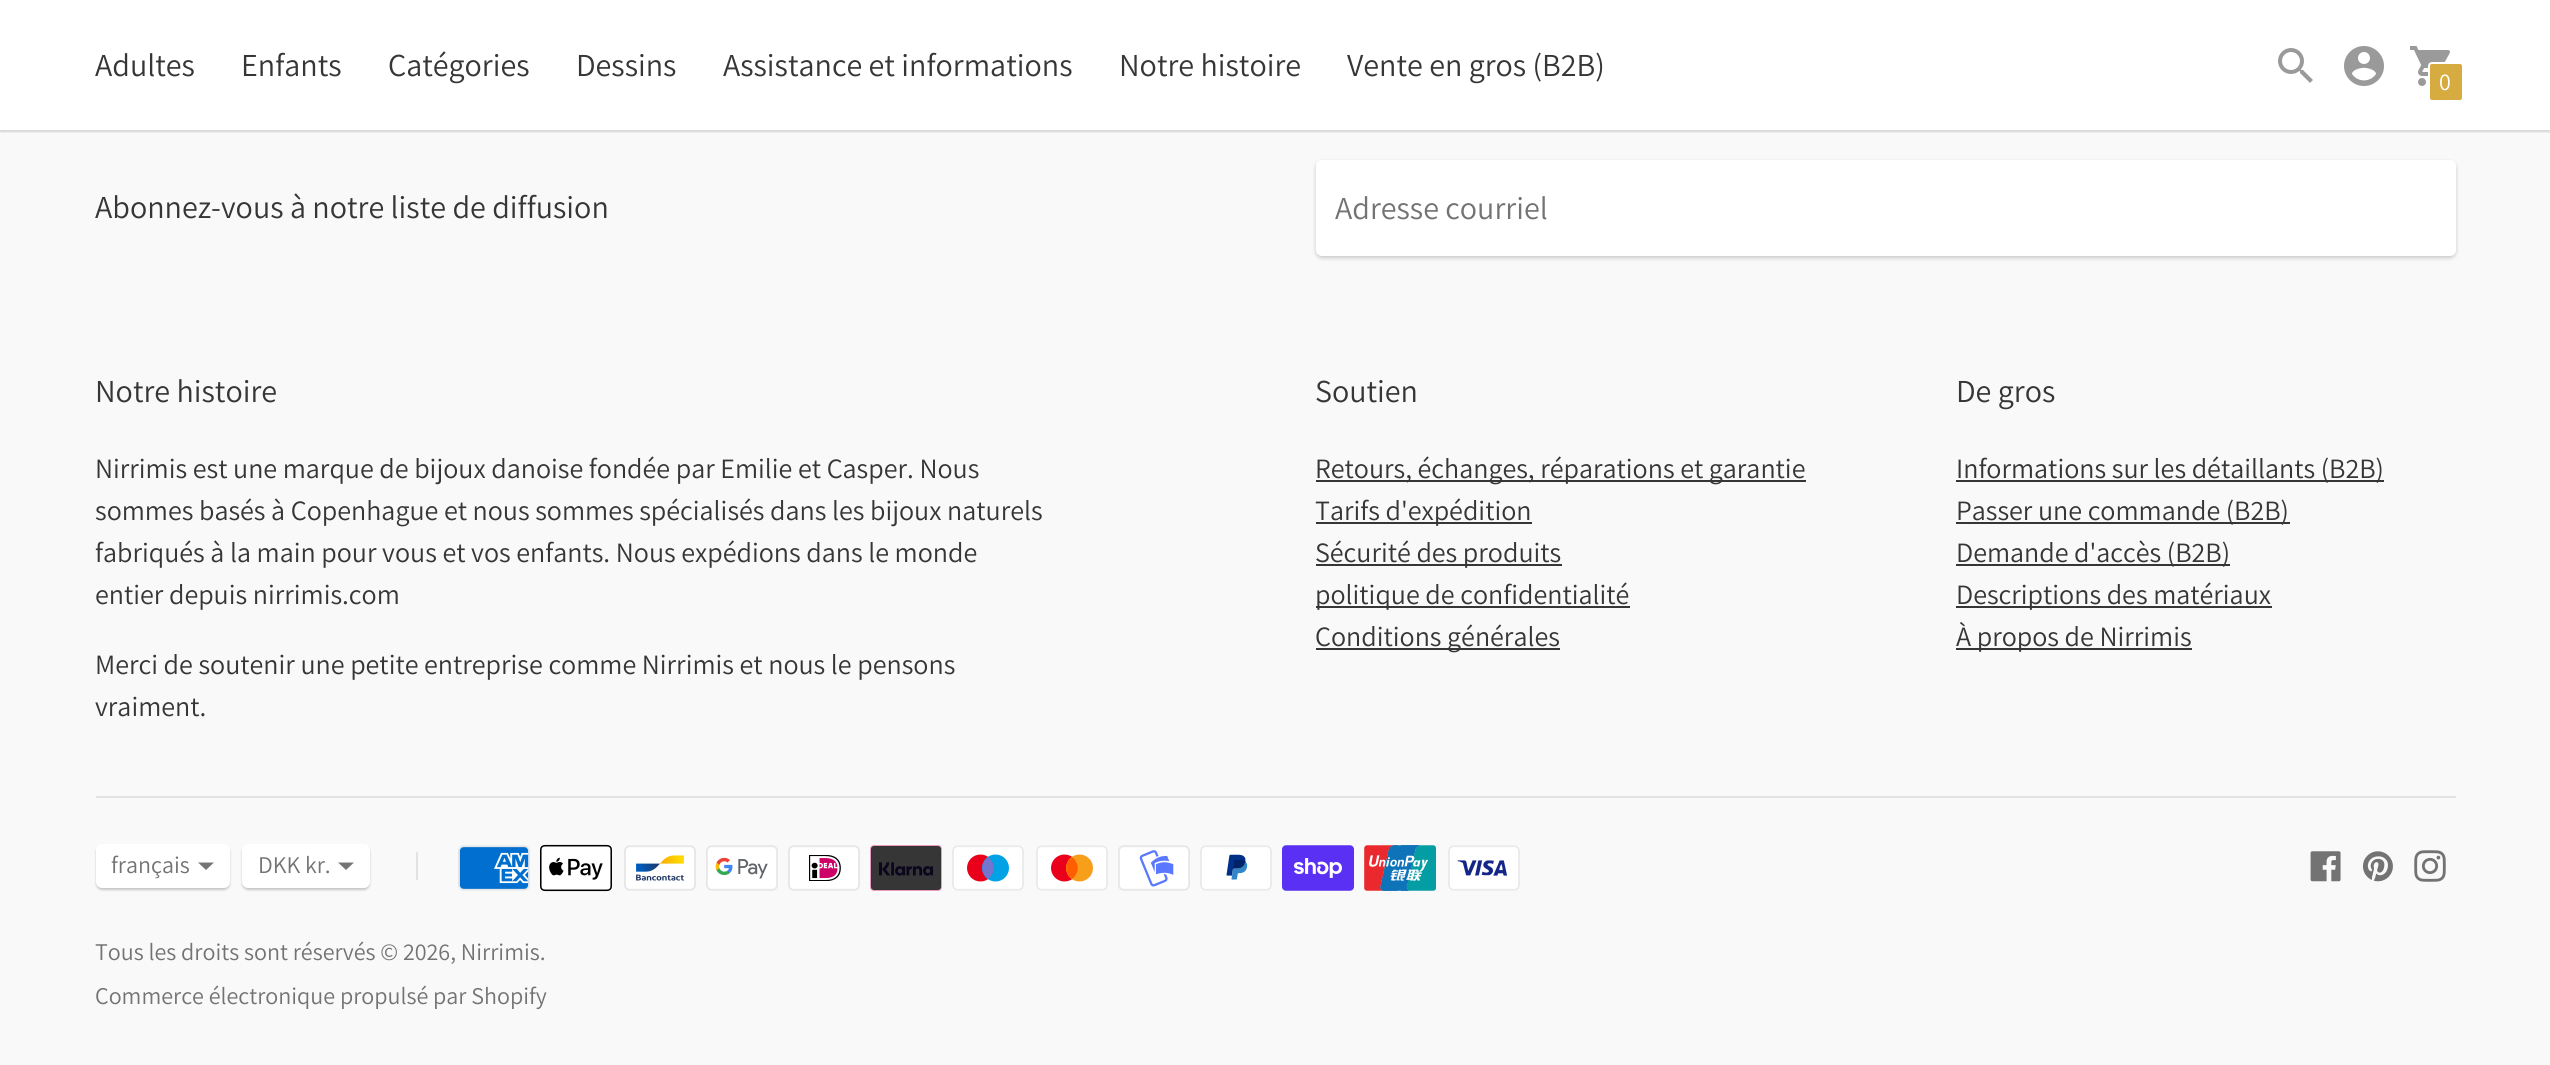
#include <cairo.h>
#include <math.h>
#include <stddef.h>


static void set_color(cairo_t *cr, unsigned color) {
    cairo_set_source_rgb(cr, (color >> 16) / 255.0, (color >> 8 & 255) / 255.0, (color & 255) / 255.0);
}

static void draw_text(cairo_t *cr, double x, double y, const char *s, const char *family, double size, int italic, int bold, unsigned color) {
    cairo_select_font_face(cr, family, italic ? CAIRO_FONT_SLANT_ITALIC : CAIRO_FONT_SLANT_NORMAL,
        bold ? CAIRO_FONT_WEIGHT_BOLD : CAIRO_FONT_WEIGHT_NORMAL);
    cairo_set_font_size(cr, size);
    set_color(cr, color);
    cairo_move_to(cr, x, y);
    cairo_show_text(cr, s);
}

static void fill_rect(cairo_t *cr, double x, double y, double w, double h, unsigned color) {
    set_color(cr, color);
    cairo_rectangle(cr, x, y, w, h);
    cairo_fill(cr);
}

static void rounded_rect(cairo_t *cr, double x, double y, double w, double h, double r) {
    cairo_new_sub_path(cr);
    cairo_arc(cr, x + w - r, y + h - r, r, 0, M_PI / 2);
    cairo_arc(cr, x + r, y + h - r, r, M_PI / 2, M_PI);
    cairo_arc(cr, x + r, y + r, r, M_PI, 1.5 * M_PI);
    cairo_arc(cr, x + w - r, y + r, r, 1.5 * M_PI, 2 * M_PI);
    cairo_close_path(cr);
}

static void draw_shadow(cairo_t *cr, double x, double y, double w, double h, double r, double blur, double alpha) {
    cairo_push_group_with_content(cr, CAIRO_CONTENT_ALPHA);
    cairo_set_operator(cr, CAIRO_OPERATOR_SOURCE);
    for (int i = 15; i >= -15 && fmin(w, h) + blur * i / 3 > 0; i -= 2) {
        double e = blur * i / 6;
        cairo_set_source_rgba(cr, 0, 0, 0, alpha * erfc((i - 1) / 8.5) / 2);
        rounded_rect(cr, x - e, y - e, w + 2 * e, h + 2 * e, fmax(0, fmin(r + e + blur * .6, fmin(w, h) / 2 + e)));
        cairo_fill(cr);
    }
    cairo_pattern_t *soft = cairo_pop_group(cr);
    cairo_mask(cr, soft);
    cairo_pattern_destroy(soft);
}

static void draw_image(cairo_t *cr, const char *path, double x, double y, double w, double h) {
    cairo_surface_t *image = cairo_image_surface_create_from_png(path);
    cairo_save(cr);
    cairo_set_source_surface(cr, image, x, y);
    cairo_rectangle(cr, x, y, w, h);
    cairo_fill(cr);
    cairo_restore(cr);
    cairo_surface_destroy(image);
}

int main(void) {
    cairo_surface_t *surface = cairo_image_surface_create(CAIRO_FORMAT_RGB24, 2550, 1065);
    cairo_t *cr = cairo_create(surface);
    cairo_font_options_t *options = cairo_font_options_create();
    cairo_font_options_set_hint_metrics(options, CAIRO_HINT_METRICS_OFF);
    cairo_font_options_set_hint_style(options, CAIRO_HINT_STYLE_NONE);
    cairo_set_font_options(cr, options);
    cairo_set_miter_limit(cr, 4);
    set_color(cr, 0xF9F9F9);
    cairo_paint(cr);
    fill_rect(cr, 0, 0, 2550, 130, 0xFFFFFF);
    cairo_save(cr);
    cairo_rectangle(cr, 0, 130, 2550, 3);
    cairo_clip(cr);
    set_color(cr, 0x000000);
    draw_shadow(cr, 0, -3, 2550, 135, 0, 1, 0.15);
    cairo_restore(cr);
    draw_text(cr, 95, 76, "Adultes", "Assistant", 32, 0, 0, 0x363636);
    draw_text(cr, 241, 76, "Enfants", "Assistant", 32, 0, 0, 0x363636);
    draw_text(cr, 388, 76, "Catégories", "Assistant", 32, 0, 0, 0x363636);
    draw_text(cr, 576, 76, "Dessins", "Assistant", 32, 0, 0, 0x363636);
    draw_text(cr, 723, 76, "Assistance et informations", "Assistant", 32, 0, 0, 0x363636);
    draw_text(cr, 1119, 76, "Notre histoire", "Assistant", 32, 0, 0, 0x363636);
    draw_text(cr, 1347, 76, "Vente en gros (B2B)", "Assistant", 32, 0, 0, 0x363636);
    draw_image(cr, "assets/img1.png", 2278, 48, 35, 35);
    draw_image(cr, "assets/img2.png", 2344, 46, 40, 40);
    draw_image(cr, "assets/img3.png", 2410, 46, 40, 40);
    set_color(cr, 0xD6AB40);
    rounded_rect(cr, 2429, 63, 34, 38, 3);
    cairo_fill_preserve(cr);
    set_color(cr, 0xFFFFFF);
    cairo_stroke(cr);
    draw_text(cr, 2439, 90, "0", "Assistant", 24, 0, 0, 0xFFFFFF);
    draw_text(cr, 95, 218, "Abonnez-vous à notre liste de diffusion", "Assistant", 32, 0, 0, 0x363636);
    set_color(cr, 0x000000);
    draw_shadow(cr, 1316, 162, 1140, 96, 6, 2, 0.2);
    set_color(cr, 0xFFFFFF);
    rounded_rect(cr, 1316, 160, 1140, 96, 6);
    cairo_fill(cr);
    draw_text(cr, 1335, 219, "Adresse courriel", "Assistant", 32, 0, 0, 0x737373);
    draw_text(cr, 95, 402, "Notre histoire", "Assistant", 32, 0, 0, 0x363636);
    draw_text(cr, 95, 478, "Nirrimis est une marque de bijoux danoise fondée par Emilie et Casper. Nous", "Assistant", 28, 0, 0, 0x363636);
    draw_text(cr, 95, 520, "sommes basés à Copenhague et nous sommes spécialisés dans les bijoux naturels", "Assistant", 28, 0, 0, 0x363636);
    draw_text(cr, 95, 562, "fabriqués à la main pour vous et vos enfants. Nous expédions dans le monde", "Assistant", 28, 0, 0, 0x363636);
    draw_text(cr, 95, 604, "entier depuis nirrimis.com", "Assistant", 28, 0, 0, 0x363636);
    draw_text(cr, 95, 674, "Merci de soutenir une petite entreprise comme Nirrimis et nous le pensons", "Assistant", 28, 0, 0, 0x363636);
    draw_text(cr, 95, 716, "vraiment.", "Assistant", 28, 0, 0, 0x363636);
    draw_text(cr, 1315, 402, "Soutien", "Assistant", 32, 0, 0, 0x363636);
    fill_rect(cr, 1316, 480, 490, 2, 0x363636);
    draw_text(cr, 1315, 478, "Retours, échanges, réparations et garantie", "Assistant", 28, 0, 0, 0x363636);
    fill_rect(cr, 1316, 522, 216, 2, 0x363636);
    draw_text(cr, 1315, 520, "Tarifs d'expédition", "Assistant", 28, 0, 0, 0x363636);
    fill_rect(cr, 1316, 564, 246, 2, 0x363636);
    draw_text(cr, 1315, 562, "Sécurité des produits", "Assistant", 28, 0, 0, 0x363636);
    fill_rect(cr, 1316, 606, 314, 2, 0x363636);
    draw_text(cr, 1315, 604, "politique de confidentialité", "Assistant", 28, 0, 0, 0x363636);
    fill_rect(cr, 1316, 648, 244, 2, 0x363636);
    draw_text(cr, 1315, 646, "Conditions générales", "Assistant", 28, 0, 0, 0x363636);
    draw_text(cr, 1956, 402, "De gros", "Assistant", 32, 0, 0, 0x363636);
    fill_rect(cr, 1956, 480, 428, 2, 0x363636);
    draw_text(cr, 1956, 478, "Informations sur les détaillants (B2B)", "Assistant", 28, 0, 0, 0x363636);
    fill_rect(cr, 1956, 522, 334, 2, 0x363636);
    draw_text(cr, 1956, 520, "Passer une commande (B2B)", "Assistant", 28, 0, 0, 0x363636);
    fill_rect(cr, 1956, 564, 274, 2, 0x363636);
    draw_text(cr, 1956, 562, "Demande d'accès (B2B)", "Assistant", 28, 0, 0, 0x363636);
    fill_rect(cr, 1956, 606, 316, 2, 0x363636);
    draw_text(cr, 1956, 604, "Descriptions des matériaux", "Assistant", 28, 0, 0, 0x363636);
    fill_rect(cr, 1956, 648, 236, 2, 0x363636);
    draw_text(cr, 1956, 646, "À propos de Nirrimis", "Assistant", 28, 0, 0, 0x363636);
    fill_rect(cr, 96, 796, 2360, 2, 0xE2E2E2);
    set_color(cr, 0x000000);
    draw_shadow(cr, 96, 846, 134, 44, 6, 1, 0.2);
    set_color(cr, 0xFFFFFF);
    rounded_rect(cr, 96, 844, 134, 44, 6);
    cairo_fill(cr);
    draw_text(cr, 111, 873, "français", "Assistant", 24, 0, 0, 0x737373);
    set_color(cr, 0x757575);
    cairo_new_path(cr);
    cairo_move_to(cr, 206, 870);
    cairo_line_to(cr, 214, 862.5);
    cairo_line_to(cr, 198, 862.5);
    cairo_close_path(cr);
    cairo_fill(cr);
    set_color(cr, 0x000000);
    draw_shadow(cr, 242, 846, 128, 44, 6, 1, 0.2);
    set_color(cr, 0xFFFFFF);
    rounded_rect(cr, 242, 844, 128, 44, 6);
    cairo_fill(cr);
    draw_text(cr, 258, 873, "DKK kr.", "Assistant", 24, 0, 0, 0x737373);
    set_color(cr, 0x757575);
    cairo_new_path(cr);
    cairo_move_to(cr, 346, 870);
    cairo_line_to(cr, 354, 862.5);
    cairo_line_to(cr, 338, 862.5);
    cairo_close_path(cr);
    cairo_fill(cr);
    fill_rect(cr, 416, 852, 2, 28, 0xE2E2E2);
    draw_image(cr, "assets/img4.png", 458, 845, 72, 46);
    draw_image(cr, "assets/img5.png", 540, 844, 72, 48);
    draw_image(cr, "assets/img6.png", 624, 845, 72, 46);
    draw_image(cr, "assets/img7.png", 706, 845, 72, 46);
    draw_image(cr, "assets/img8.png", 788, 845, 72, 46);
    draw_image(cr, "assets/img9.png", 870, 845, 72, 46);
    draw_image(cr, "assets/img10.png", 952, 845, 72, 46);
    draw_image(cr, "assets/img11.png", 1036, 845, 72, 46);
    draw_image(cr, "assets/img12.png", 1118, 845, 72, 46);
    draw_image(cr, "assets/img13.png", 1200, 845, 72, 46);
    draw_image(cr, "assets/img14.png", 1282, 845, 72, 46);
    draw_image(cr, "assets/img15.png", 1364, 845, 72, 46);
    draw_image(cr, "assets/img16.png", 1448, 845, 72, 46);
    draw_text(cr, 95, 960, "Tous les droits sont réservés © 2026, Nirrimis.", "Assistant", 24, 0, 0, 0x737373);
    draw_text(cr, 95, 1004, "Commerce électronique propulsé par Shopify", "Assistant", 24, 0, 0, 0x737373);
    draw_image(cr, "assets/img17.png", 2310, 851, 31, 31);
    draw_image(cr, "assets/img18.png", 2362, 851, 31, 31);
    draw_image(cr, "assets/img19.png", 2414, 850, 32, 32);
    cairo_surface_write_to_png(surface, "output.png");
    cairo_font_options_destroy(options);
    cairo_destroy(cr);
    cairo_surface_destroy(surface);
    return 0;
}
